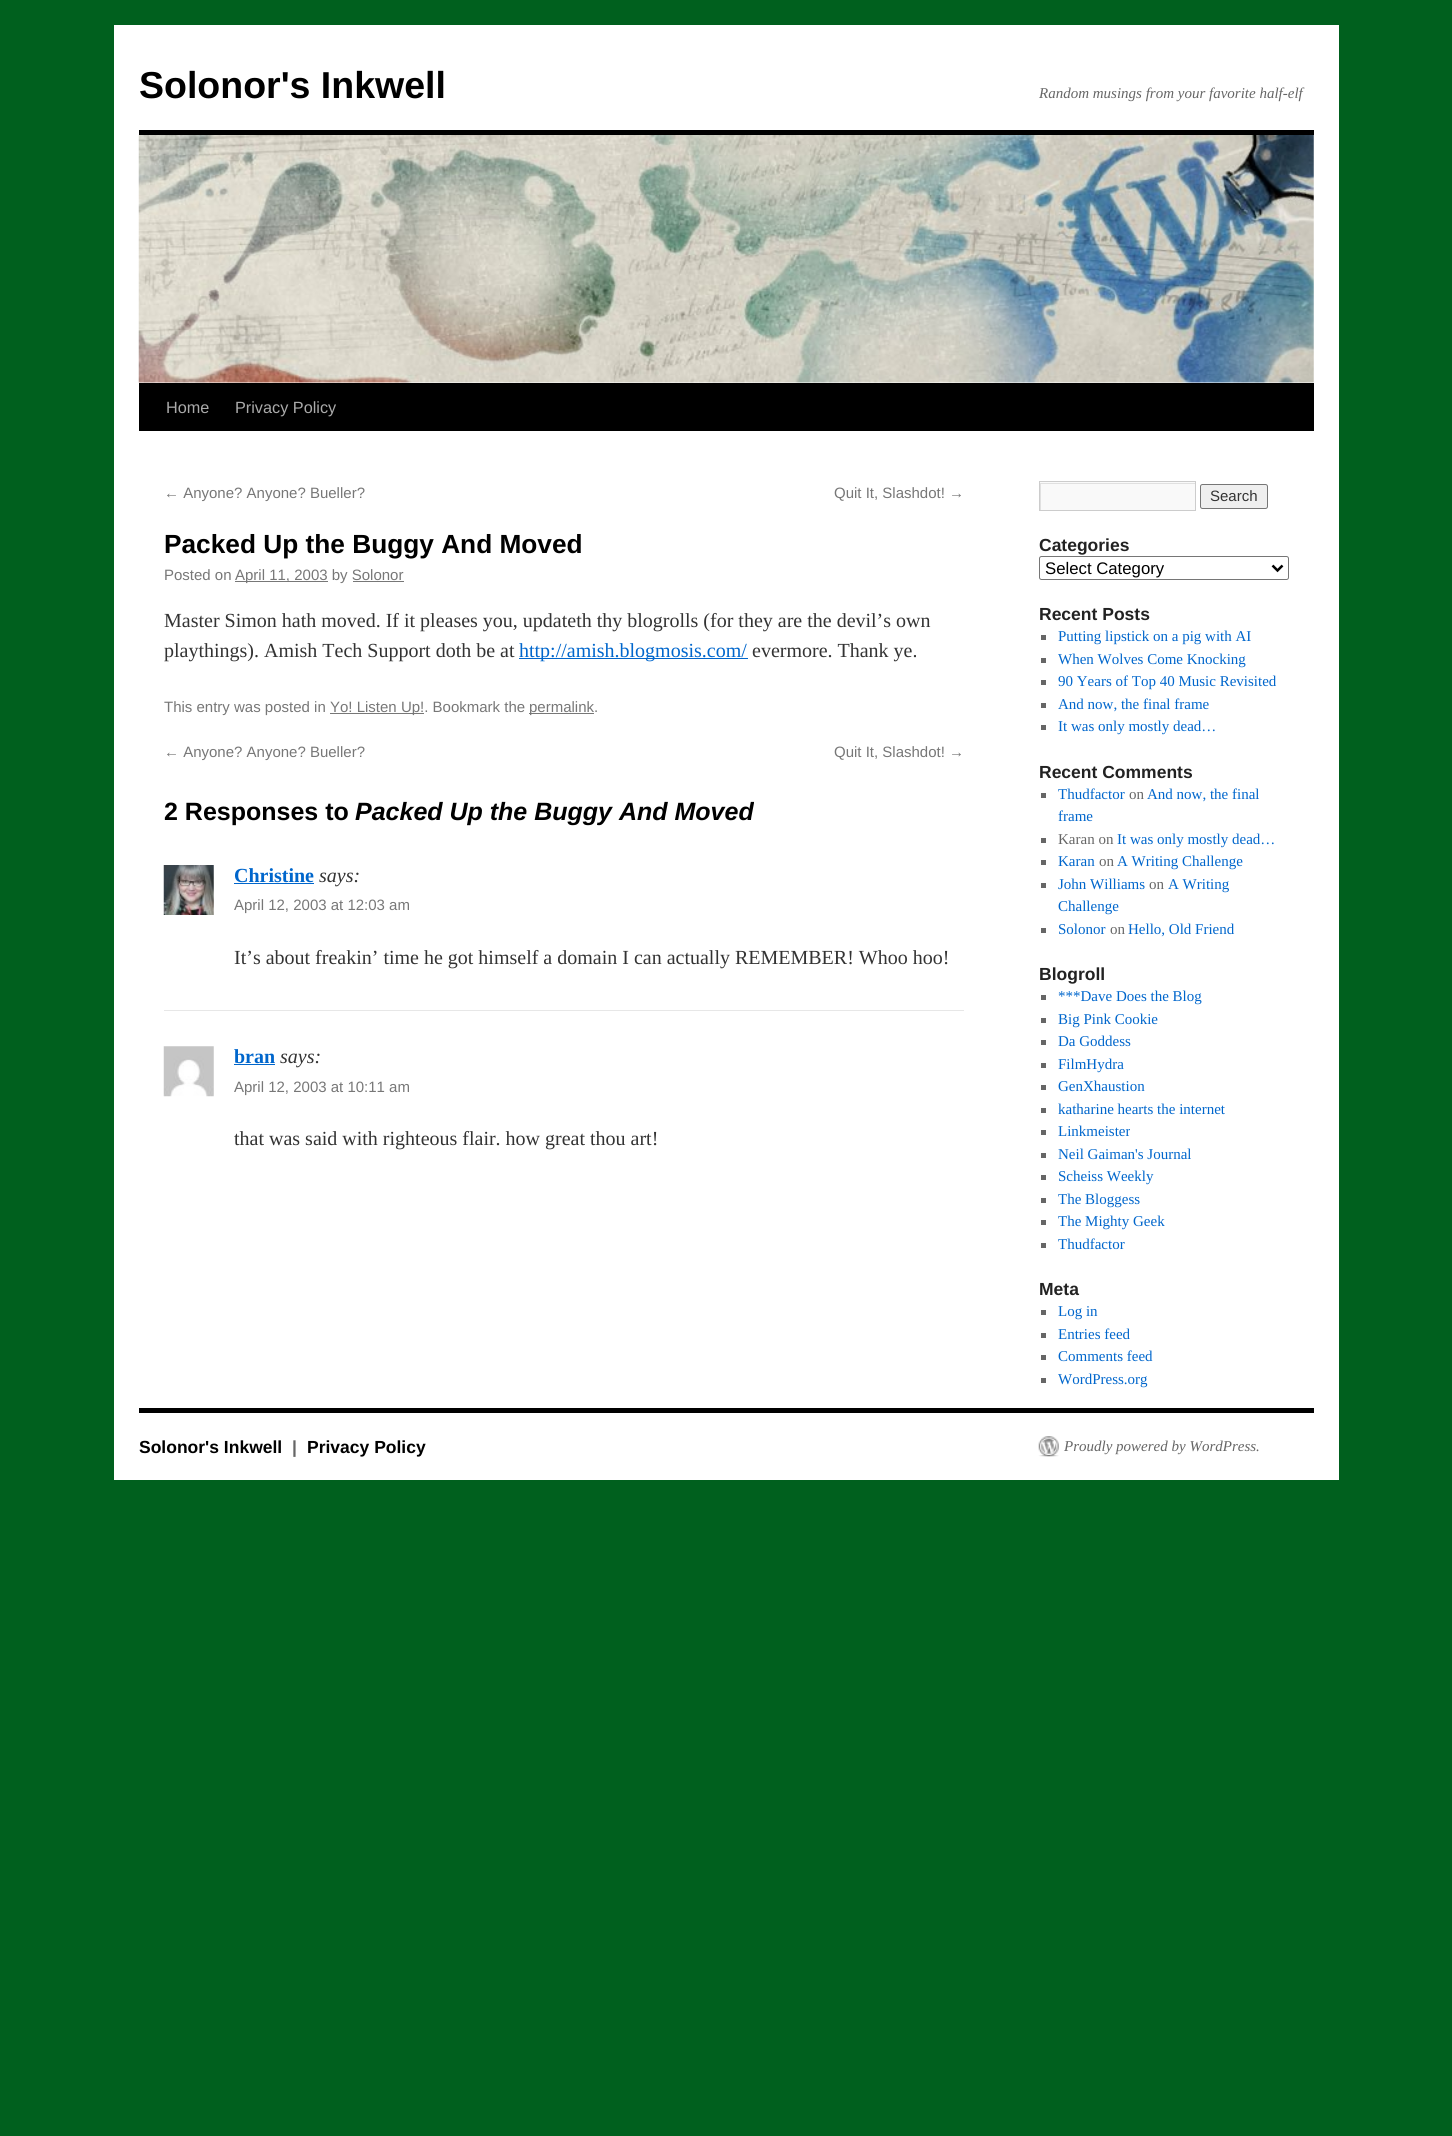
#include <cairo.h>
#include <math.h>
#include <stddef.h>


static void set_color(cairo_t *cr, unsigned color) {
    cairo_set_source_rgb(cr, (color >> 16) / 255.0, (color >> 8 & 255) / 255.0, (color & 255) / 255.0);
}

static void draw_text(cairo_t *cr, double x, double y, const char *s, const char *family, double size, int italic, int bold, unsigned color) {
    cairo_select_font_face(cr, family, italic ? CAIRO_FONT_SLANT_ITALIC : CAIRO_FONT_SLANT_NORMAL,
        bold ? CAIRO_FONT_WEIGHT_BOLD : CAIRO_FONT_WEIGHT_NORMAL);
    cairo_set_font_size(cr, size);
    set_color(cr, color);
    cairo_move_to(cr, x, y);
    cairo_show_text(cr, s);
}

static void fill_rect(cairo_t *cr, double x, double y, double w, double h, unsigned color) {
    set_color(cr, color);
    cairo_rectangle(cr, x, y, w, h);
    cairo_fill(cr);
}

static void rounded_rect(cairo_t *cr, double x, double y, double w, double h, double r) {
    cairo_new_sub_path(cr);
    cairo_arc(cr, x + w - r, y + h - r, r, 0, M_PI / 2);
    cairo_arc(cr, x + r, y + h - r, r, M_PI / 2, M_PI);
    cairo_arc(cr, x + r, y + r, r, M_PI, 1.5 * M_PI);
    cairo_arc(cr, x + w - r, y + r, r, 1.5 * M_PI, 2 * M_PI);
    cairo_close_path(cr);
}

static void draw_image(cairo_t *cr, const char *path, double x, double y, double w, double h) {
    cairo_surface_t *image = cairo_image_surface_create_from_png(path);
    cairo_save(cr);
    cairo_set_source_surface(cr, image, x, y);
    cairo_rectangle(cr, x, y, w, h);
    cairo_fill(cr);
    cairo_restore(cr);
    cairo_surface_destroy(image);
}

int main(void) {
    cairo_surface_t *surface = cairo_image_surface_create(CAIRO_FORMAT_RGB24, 1452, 2136);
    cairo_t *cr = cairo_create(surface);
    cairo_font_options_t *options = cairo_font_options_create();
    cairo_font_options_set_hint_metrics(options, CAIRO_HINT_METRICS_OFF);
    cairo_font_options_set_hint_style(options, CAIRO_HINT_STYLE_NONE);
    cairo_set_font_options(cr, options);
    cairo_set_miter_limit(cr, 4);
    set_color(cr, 0x00601E);
    cairo_paint(cr);
    fill_rect(cr, 114, 25, 1225, 1455, 0xFFFFFF);
    draw_text(cr, 139, 98, "Solonor's Inkwell", "Liberation Sans", 37.5, 0, 1, 0x000000);
    draw_text(cr, 1039, 98, "Random musings from your favorite half-elf", "Liberation Serif", 15, 1, 0, 0x666666);
    fill_rect(cr, 139, 130, 1175, 5, 0x000000);
    fill_rect(cr, 139, 383, 1175, 48, 0x000000);
    draw_image(cr, "assets/img1.png", 138, 135, 1176, 248);
    draw_text(cr, 166, 413, "Home", "Liberation Sans", 16.25, 0, 0, 0xAAAAAA);
    draw_text(cr, 235, 413, "Privacy Policy", "Liberation Sans", 16.25, 0, 0, 0xAAAAAA);
    draw_text(cr, 164, 498, "← Anyone? Anyone? Bueller?", "Liberation Sans", 15, 0, 0, 0x777777);
    draw_text(cr, 834, 498, "Quit It, Slashdot! →", "Liberation Sans", 15, 0, 0, 0x777777);
    draw_text(cr, 164, 553, "Packed Up the Buggy And Moved", "Liberation Sans", 26.25, 0, 1, 0x000000);
    draw_text(cr, 164, 580, "Posted on", "Liberation Sans", 15, 0, 0, 0x777777);
    fill_rect(cr, 235, 581, 93, 1, 0x777777);
    draw_text(cr, 235, 580, "April 11, 2003 by Solonor", "Liberation Sans", 15, 0, 0, 0x777777);
    fill_rect(cr, 353, 581, 51, 1, 0x777777);
    draw_text(cr, 164, 627, "Master Simon hath moved. If it pleases you, updateth thy blogrolls (for they are the devil’s own", "Liberation Serif", 20, 0, 0, 0x333333);
    draw_text(cr, 164, 657, "playthings). Amish Tech Support doth be at", "Liberation Serif", 20, 0, 0, 0x333333);
    fill_rect(cr, 519, 658, 229, 1, 0x0066CC);
    draw_text(cr, 519, 657, "http://amish.blogmosis.com/", "Liberation Serif", 20, 0, 0, 0x0066CC);
    draw_text(cr, 752, 657, "evermore. Thank ye.", "Liberation Serif", 20, 0, 0, 0x333333);
    draw_text(cr, 164, 712, "This entry was posted in", "Liberation Sans", 15, 0, 0, 0x777777);
    fill_rect(cr, 330, 713, 94, 1, 0x777777);
    draw_text(cr, 330, 712, "Yo! Listen Up!. Bookmark the", "Liberation Sans", 15, 0, 0, 0x777777);
    fill_rect(cr, 529, 713, 65, 1, 0x777777);
    draw_text(cr, 529, 712, "permalink.", "Liberation Sans", 15, 0, 0, 0x777777);
    draw_text(cr, 164, 757, "← Anyone? Anyone? Bueller?", "Liberation Sans", 15, 0, 0, 0x777777);
    draw_text(cr, 834, 757, "Quit It, Slashdot! →", "Liberation Sans", 15, 0, 0, 0x777777);
    draw_text(cr, 164, 820, "2 Responses to", "Liberation Sans", 25, 0, 1, 0x000000);
    draw_text(cr, 355, 820, "Packed Up the Buggy And Moved", "Liberation Sans", 25, 1, 1, 0x000000);
    fill_rect(cr, 164, 1010, 800, 1, 0xE7E7E7);
    draw_image(cr, "assets/img2.png", 163, 865, 51, 50);
    draw_text(cr, 234, 882, "Christine", "Liberation Serif", 20, 0, 1, 0x0066CC);
    fill_rect(cr, 234, 883, 80, 1, 0x0066CC);
    draw_text(cr, 319, 882, "says:", "Liberation Serif", 20, 1, 0, 0x333333);
    draw_text(cr, 234, 910, "April 12, 2003 at 12:03 am", "Liberation Sans", 15, 0, 0, 0x777777);
    draw_text(cr, 234, 964, "It’s about freakin’ time he got himself a domain I can actually REMEMBER! Whoo hoo!", "Liberation Serif", 20, 0, 0, 0x333333);
    draw_image(cr, "assets/img3.png", 163, 1046, 51, 51);
    draw_text(cr, 234, 1063, "bran", "Liberation Serif", 20, 0, 1, 0x0066CC);
    fill_rect(cr, 234, 1064, 41, 1, 0x0066CC);
    draw_text(cr, 280, 1063, "says:", "Liberation Serif", 20, 1, 0, 0x333333);
    draw_text(cr, 234, 1092, "April 12, 2003 at 10:11 am", "Liberation Sans", 15, 0, 0, 0x777777);
    draw_text(cr, 234, 1145, "that was said with righteous flair. how great thou art!", "Liberation Serif", 20, 0, 0, 0x333333);
    fill_rect(cr, 1040, 482, 155, 28, 0xF9F9F9);
    cairo_save(cr);
    cairo_rectangle(cr, 1040, 483, 155, 27);
    cairo_clip(cr);
    set_color(cr, 0xE0E0E0);
    cairo_set_fill_rule(cr, CAIRO_FILL_RULE_EVEN_ODD);
    cairo_new_path(cr);
    cairo_move_to(cr, 916, 359);
    cairo_line_to(cr, 1319, 359);
    cairo_line_to(cr, 1319, 634);
    cairo_line_to(cr, 916, 634);
    cairo_close_path(cr);
    cairo_move_to(cr, 1041, 484);
    cairo_line_to(cr, 1196, 484);
    cairo_line_to(cr, 1196, 511);
    cairo_line_to(cr, 1041, 511);
    cairo_close_path(cr);
    cairo_fill(cr);
    cairo_restore(cr);
    cairo_rectangle(cr, 1039.5, 481.5, 156, 29);
    set_color(cr, 0xCCCCCC);
    cairo_set_line_width(cr, 1);
    cairo_stroke(cr);
    set_color(cr, 0xEFEFEF);
    rounded_rect(cr, 1200.5, 484.5, 67, 24, 2);
    cairo_fill_preserve(cr);
    set_color(cr, 0x767676);
    cairo_stroke(cr);
    draw_text(cr, 1210, 501, "Search", "Liberation Sans", 15, 0, 0, 0x333333);
    draw_text(cr, 1039, 551, "Categories", "Liberation Sans", 17.5, 0, 1, 0x222222);
    rounded_rect(cr, 1039.5, 556.5, 249, 23, 2);
    set_color(cr, 0x767676);
    cairo_stroke(cr);
    cairo_new_path(cr);
    cairo_move_to(cr, 1272.5, 565.5);
    cairo_line_to(cr, 1277.5, 570.5);
    cairo_line_to(cr, 1282.5, 565.5);
    set_color(cr, 0x000000);
    cairo_set_line_width(cr, 2.5);
    cairo_stroke(cr);
    draw_text(cr, 1045, 574, "Select Category", "Liberation Sans", 16.75, 0, 0, 0x000000);
    draw_text(cr, 1039, 620, "Recent Posts", "Liberation Sans", 17.5, 0, 1, 0x222222);
    fill_rect(cr, 1041, 635, 5, 5, 0x666666);
    draw_text(cr, 1058, 641, "Putting lipstick on a pig with AI", "Liberation Serif", 15, 0, 0, 0x0066CC);
    fill_rect(cr, 1041, 658, 5, 5, 0x666666);
    draw_text(cr, 1058, 664, "When Wolves Come Knocking", "Liberation Serif", 15, 0, 0, 0x0066CC);
    fill_rect(cr, 1041, 680, 5, 5, 0x666666);
    draw_text(cr, 1058, 686, "90 Years of Top 40 Music Revisited", "Liberation Serif", 15, 0, 0, 0x0066CC);
    fill_rect(cr, 1041, 703, 5, 5, 0x666666);
    draw_text(cr, 1058, 709, "And now, the final frame", "Liberation Serif", 15, 0, 0, 0x0066CC);
    fill_rect(cr, 1041, 725, 5, 5, 0x666666);
    draw_text(cr, 1058, 731, "It was only mostly dead…", "Liberation Serif", 15, 0, 0, 0x0066CC);
    draw_text(cr, 1039, 778, "Recent Comments", "Liberation Sans", 17.5, 0, 1, 0x222222);
    fill_rect(cr, 1041, 793, 5, 5, 0x666666);
    draw_text(cr, 1058, 799, "Thudfactor", "Liberation Serif", 15, 0, 0, 0x0066CC);
    draw_text(cr, 1129, 799, "on", "Liberation Serif", 15, 0, 0, 0x666666);
    draw_text(cr, 1147, 799, "And now, the final", "Liberation Serif", 15, 0, 0, 0x0066CC);
    draw_text(cr, 1058, 821, "frame", "Liberation Serif", 15, 0, 0, 0x0066CC);
    fill_rect(cr, 1041, 838, 5, 5, 0x666666);
    draw_text(cr, 1058, 844, "Karan on", "Liberation Serif", 15, 0, 0, 0x666666);
    draw_text(cr, 1117, 844, "It was only mostly dead…", "Liberation Serif", 15, 0, 0, 0x0066CC);
    fill_rect(cr, 1041, 860, 5, 5, 0x666666);
    draw_text(cr, 1058, 866, "Karan", "Liberation Serif", 15, 0, 0, 0x0066CC);
    draw_text(cr, 1099, 866, "on", "Liberation Serif", 15, 0, 0, 0x666666);
    draw_text(cr, 1117, 866, "A Writing Challenge", "Liberation Serif", 15, 0, 0, 0x0066CC);
    fill_rect(cr, 1041, 883, 5, 5, 0x666666);
    draw_text(cr, 1058, 889, "John Williams", "Liberation Serif", 15, 0, 0, 0x0066CC);
    draw_text(cr, 1149, 889, "on", "Liberation Serif", 15, 0, 0, 0x666666);
    draw_text(cr, 1168, 889, "A Writing", "Liberation Serif", 15, 0, 0, 0x0066CC);
    draw_text(cr, 1058, 911, "Challenge", "Liberation Serif", 15, 0, 0, 0x0066CC);
    fill_rect(cr, 1041, 928, 5, 5, 0x666666);
    draw_text(cr, 1058, 934, "Solonor", "Liberation Serif", 15, 0, 0, 0x0066CC);
    draw_text(cr, 1110, 934, "on", "Liberation Serif", 15, 0, 0, 0x666666);
    draw_text(cr, 1128, 934, "Hello, Old Friend", "Liberation Serif", 15, 0, 0, 0x0066CC);
    draw_text(cr, 1039, 980, "Blogroll", "Liberation Sans", 17.5, 0, 1, 0x222222);
    fill_rect(cr, 1041, 995, 5, 5, 0x666666);
    draw_text(cr, 1058, 1001, "***Dave Does the Blog", "Liberation Serif", 15, 0, 0, 0x0066CC);
    fill_rect(cr, 1041, 1018, 5, 5, 0x666666);
    draw_text(cr, 1058, 1024, "Big Pink Cookie", "Liberation Serif", 15, 0, 0, 0x0066CC);
    fill_rect(cr, 1041, 1040, 5, 5, 0x666666);
    draw_text(cr, 1058, 1046, "Da Goddess", "Liberation Serif", 15, 0, 0, 0x0066CC);
    fill_rect(cr, 1041, 1063, 5, 5, 0x666666);
    draw_text(cr, 1058, 1069, "FilmHydra", "Liberation Serif", 15, 0, 0, 0x0066CC);
    fill_rect(cr, 1041, 1085, 5, 5, 0x666666);
    draw_text(cr, 1058, 1091, "GenXhaustion", "Liberation Serif", 15, 0, 0, 0x0066CC);
    fill_rect(cr, 1041, 1108, 5, 5, 0x666666);
    draw_text(cr, 1058, 1114, "katharine hearts the internet", "Liberation Serif", 15, 0, 0, 0x0066CC);
    fill_rect(cr, 1041, 1130, 5, 5, 0x666666);
    draw_text(cr, 1058, 1136, "Linkmeister", "Liberation Serif", 15, 0, 0, 0x0066CC);
    fill_rect(cr, 1041, 1153, 5, 5, 0x666666);
    draw_text(cr, 1058, 1159, "Neil Gaiman's Journal", "Liberation Serif", 15, 0, 0, 0x0066CC);
    fill_rect(cr, 1041, 1175, 5, 5, 0x666666);
    draw_text(cr, 1058, 1181, "Scheiss Weekly", "Liberation Serif", 15, 0, 0, 0x0066CC);
    fill_rect(cr, 1041, 1198, 5, 5, 0x666666);
    draw_text(cr, 1058, 1204, "The Bloggess", "Liberation Serif", 15, 0, 0, 0x0066CC);
    fill_rect(cr, 1041, 1220, 5, 5, 0x666666);
    draw_text(cr, 1058, 1226, "The Mighty Geek", "Liberation Serif", 15, 0, 0, 0x0066CC);
    fill_rect(cr, 1041, 1243, 5, 5, 0x666666);
    draw_text(cr, 1058, 1249, "Thudfactor", "Liberation Serif", 15, 0, 0, 0x0066CC);
    draw_text(cr, 1039, 1295, "Meta", "Liberation Sans", 17.5, 0, 1, 0x222222);
    fill_rect(cr, 1041, 1310, 5, 5, 0x666666);
    draw_text(cr, 1058, 1316, "Log in", "Liberation Serif", 15, 0, 0, 0x0066CC);
    fill_rect(cr, 1041, 1333, 5, 5, 0x666666);
    draw_text(cr, 1058, 1339, "Entries feed", "Liberation Serif", 15, 0, 0, 0x0066CC);
    fill_rect(cr, 1041, 1355, 5, 5, 0x666666);
    draw_text(cr, 1058, 1361, "Comments feed", "Liberation Serif", 15, 0, 0, 0x0066CC);
    fill_rect(cr, 1041, 1378, 5, 5, 0x666666);
    draw_text(cr, 1058, 1384, "WordPress.org", "Liberation Serif", 15, 0, 0, 0x0066CC);
    fill_rect(cr, 139, 1408, 1175, 5, 0x000000);
    draw_text(cr, 139, 1453, "Solonor's Inkwell", "Liberation Sans", 17.5, 0, 1, 0x000000);
    draw_text(cr, 292, 1453, "|", "Liberation Sans", 17.5, 0, 1, 0x666666);
    draw_text(cr, 307, 1453, "Privacy Policy", "Liberation Sans", 17.5, 0, 1, 0x000000);
    draw_image(cr, "assets/img4.png", 1038, 1436, 21, 21);
    draw_text(cr, 1064, 1451, "Proudly powered by WordPress.", "Liberation Serif", 15, 1, 0, 0x666666);
    cairo_surface_write_to_png(surface, "output.png");
    cairo_font_options_destroy(options);
    cairo_destroy(cr);
    cairo_surface_destroy(surface);
    return 0;
}
